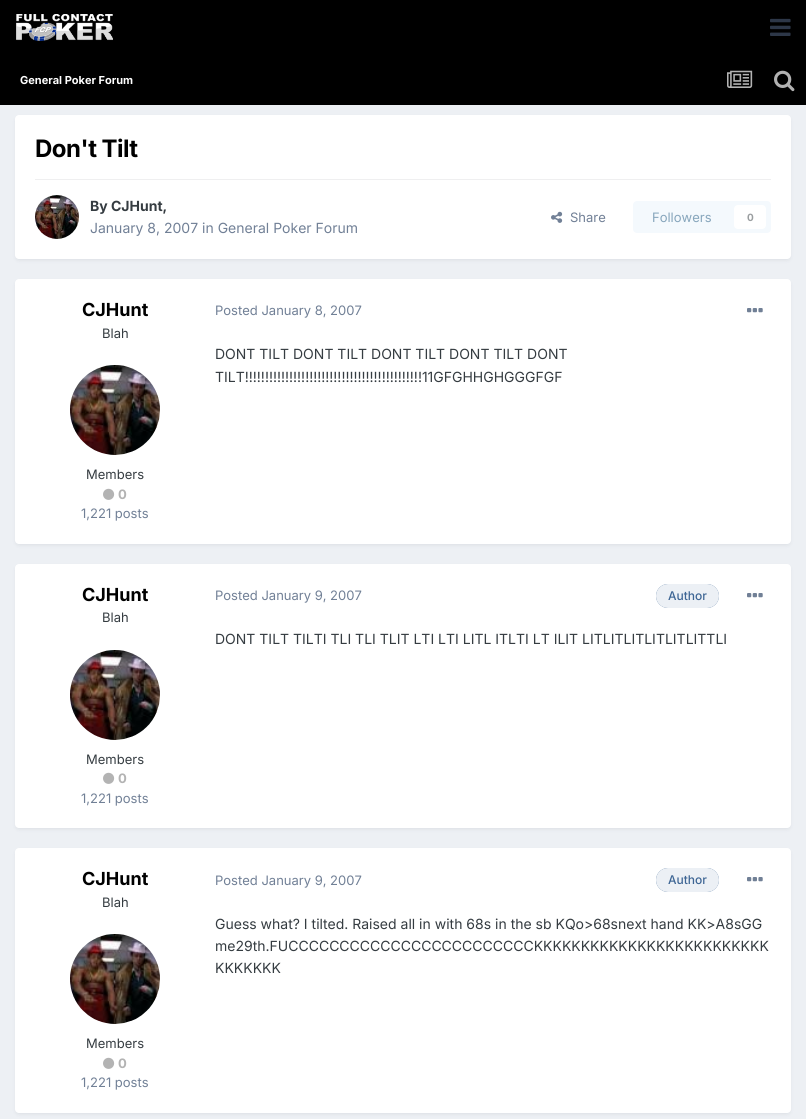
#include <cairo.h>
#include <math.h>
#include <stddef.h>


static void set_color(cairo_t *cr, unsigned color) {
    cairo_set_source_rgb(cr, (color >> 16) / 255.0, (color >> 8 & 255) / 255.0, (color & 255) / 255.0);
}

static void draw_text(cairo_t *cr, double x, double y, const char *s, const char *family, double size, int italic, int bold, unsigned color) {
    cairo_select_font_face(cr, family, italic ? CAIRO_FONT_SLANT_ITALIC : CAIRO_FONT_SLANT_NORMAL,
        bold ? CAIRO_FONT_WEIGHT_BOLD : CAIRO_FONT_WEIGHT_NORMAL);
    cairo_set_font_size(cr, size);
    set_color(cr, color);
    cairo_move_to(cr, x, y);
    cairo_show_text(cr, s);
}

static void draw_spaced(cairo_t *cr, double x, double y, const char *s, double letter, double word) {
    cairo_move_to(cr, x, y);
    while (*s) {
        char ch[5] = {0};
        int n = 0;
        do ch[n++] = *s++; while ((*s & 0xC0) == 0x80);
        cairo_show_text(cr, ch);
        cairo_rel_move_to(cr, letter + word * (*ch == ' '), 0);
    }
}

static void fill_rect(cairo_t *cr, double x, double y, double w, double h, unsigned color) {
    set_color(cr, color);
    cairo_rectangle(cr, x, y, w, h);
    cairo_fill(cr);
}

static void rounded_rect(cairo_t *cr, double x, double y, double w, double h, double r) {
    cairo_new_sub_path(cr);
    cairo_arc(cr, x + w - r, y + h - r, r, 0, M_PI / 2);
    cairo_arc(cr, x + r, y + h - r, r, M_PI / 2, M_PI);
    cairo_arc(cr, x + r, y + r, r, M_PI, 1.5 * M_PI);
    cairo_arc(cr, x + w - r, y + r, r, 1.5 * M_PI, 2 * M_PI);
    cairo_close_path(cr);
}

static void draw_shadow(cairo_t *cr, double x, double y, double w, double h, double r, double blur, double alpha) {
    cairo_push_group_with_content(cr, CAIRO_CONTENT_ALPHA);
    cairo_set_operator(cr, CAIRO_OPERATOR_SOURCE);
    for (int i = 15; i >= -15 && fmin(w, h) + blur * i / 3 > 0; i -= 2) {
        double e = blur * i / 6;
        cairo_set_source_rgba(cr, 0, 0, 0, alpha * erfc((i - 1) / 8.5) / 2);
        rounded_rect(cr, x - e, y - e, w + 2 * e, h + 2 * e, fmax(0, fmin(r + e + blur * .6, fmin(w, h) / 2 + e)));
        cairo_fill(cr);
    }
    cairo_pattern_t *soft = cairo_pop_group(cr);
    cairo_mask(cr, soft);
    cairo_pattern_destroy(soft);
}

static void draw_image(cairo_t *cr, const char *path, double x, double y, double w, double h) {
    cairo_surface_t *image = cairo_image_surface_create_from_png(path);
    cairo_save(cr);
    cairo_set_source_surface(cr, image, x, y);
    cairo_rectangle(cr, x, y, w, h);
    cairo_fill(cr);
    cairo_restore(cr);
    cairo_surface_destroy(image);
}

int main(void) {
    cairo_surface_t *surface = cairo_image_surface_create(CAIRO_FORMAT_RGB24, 806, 1119);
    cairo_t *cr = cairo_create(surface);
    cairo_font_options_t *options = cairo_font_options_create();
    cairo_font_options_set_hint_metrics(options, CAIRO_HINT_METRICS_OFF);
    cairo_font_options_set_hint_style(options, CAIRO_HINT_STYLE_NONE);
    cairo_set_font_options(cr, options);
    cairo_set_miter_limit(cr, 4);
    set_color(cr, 0xEDF0F4);
    cairo_paint(cr);
    fill_rect(cr, 0, 0, 806, 105, 0x000000);
    draw_image(cr, "assets/img1.png", 16, 14, 97, 27);
    draw_image(cr, "assets/img2.png", 770, 18, 21, 18);
    draw_text(cr, 20, 84, "General Poker Forum", "Inter", 11, 0, 1, 0xFFFFFF);
    draw_image(cr, "assets/img3.png", 727, 70, 26, 18);
    draw_image(cr, "assets/img4.png", 774, 70, 21, 22);
    set_color(cr, 0x2D3748);
    draw_shadow(cr, 16, 118, 774, 142, 3, 2, 0.1);
    set_color(cr, 0xFFFFFF);
    rounded_rect(cr, 15, 115, 776, 144, 4);
    cairo_fill(cr);
    cairo_set_font_size(cr, 24);
    set_color(cr, 0x000000);
    draw_spaced(cr, 35, 157, "Don't Tilt", -0.5, 0);
    fill_rect(cr, 35, 179, 736, 1, 0xEFEFF0);
    draw_image(cr, "assets/img5.png", 35, 195, 44, 44);
    draw_text(cr, 90, 211, "By CJHunt,", "Inter", 14, 0, 1, 0x353C41);
    draw_text(cr, 90, 233, "January 8, 2007 in General Poker Forum", "Inter", 14, 0, 0, 0x718096);
    draw_image(cr, "assets/img6.png", 551, 211, 12, 12);
    draw_text(cr, 570, 222, "Share", "Inter", 13, 0, 0, 0x718096);
    set_color(cr, 0xF4F9FD);
    rounded_rect(cr, 633, 201, 138, 32, 4);
    cairo_fill(cr);
    draw_text(cr, 652, 222, "Followers", "Inter", 13, 0, 0, 0x87A6BC);
    set_color(cr, 0xFFFFFF);
    rounded_rect(cr, 734, 205, 32, 24, 4);
    cairo_fill(cr);
    draw_text(cr, 747, 221, "0", "Inter", 10, 0, 1, 0x9A9EA0);
    set_color(cr, 0x2D3748);
    draw_shadow(cr, 16, 282, 774, 263, 3, 2, 0.1);
    set_color(cr, 0xFFFFFF);
    rounded_rect(cr, 15, 279, 776, 265, 4);
    cairo_fill(cr);
    draw_text(cr, 82, 316, "CJHunt", "Inter", 18, 0, 1, 0x000000);
    draw_text(cr, 102, 338, "Blah", "Inter", 13, 0, 0, 0x353C41);
    draw_image(cr, "assets/img7.png", 70, 365, 90, 90);
    draw_text(cr, 86, 479, "Members", "Inter", 13, 0, 0, 0x353C41);
    draw_image(cr, "assets/img8.png", 103, 488, 12, 12);
    draw_text(cr, 118, 499, "0", "Inter", 13, 0, 1, 0xB3B3B3);
    draw_text(cr, 81, 518, "1,221 posts", "Inter", 13, 0, 0, 0x718096);
    draw_text(cr, 215, 315, "Posted January 8, 2007", "Inter", 13, 0, 0, 0x718096);
    draw_image(cr, "assets/img9.png", 747, 308, 16, 5);
    draw_text(cr, 215, 359, "DONT TILT DONT TILT DONT TILT DONT TILT DONT", "Inter", 14, 0, 0, 0x353C41);
    draw_text(cr, 215, 382, "TILT!!!!!!!!!!!!!!!!!!!!!!!!!!!!!!!!!!!!!!!!!!!!11GFGHHGHGGGFGF", "Inter", 14, 0, 0, 0x353C41);
    set_color(cr, 0x2D3748);
    draw_shadow(cr, 16, 567, 774, 262, 3, 2, 0.1);
    set_color(cr, 0xFFFFFF);
    rounded_rect(cr, 15, 564, 776, 264, 4);
    cairo_fill(cr);
    draw_text(cr, 82, 601, "CJHunt", "Inter", 18, 0, 1, 0x000000);
    draw_text(cr, 102, 622, "Blah", "Inter", 13, 0, 0, 0x353C41);
    draw_image(cr, "assets/img7.png", 70, 650, 90, 90);
    draw_text(cr, 86, 764, "Members", "Inter", 13, 0, 0, 0x353C41);
    draw_image(cr, "assets/img8.png", 103, 772, 12, 12);
    draw_text(cr, 118, 783, "0", "Inter", 13, 0, 1, 0xB3B3B3);
    draw_text(cr, 81, 803, "1,221 posts", "Inter", 13, 0, 0, 0x718096);
    draw_text(cr, 215, 600, "Posted January 9, 2007", "Inter", 13, 0, 0, 0x718096);
    set_color(cr, 0x3D6594);
    rounded_rect(cr, 656, 584, 63, 24, 12);
    cairo_fill(cr);
    cairo_set_source_rgba(cr, 1, 1, 1, 0.9);
    rounded_rect(cr, 656, 584, 63, 24, 12);
    cairo_fill(cr);
    draw_text(cr, 668, 600, "Author", "Inter Medium", 12, 0, 0, 0x3D6594);
    draw_image(cr, "assets/img9.png", 747, 593, 16, 5);
    draw_text(cr, 215, 644, "DONT TILT TILTI TLI TLI TLIT LTI LTI LITL ITLTI LT ILIT LITLITLITLITLITLITTLI", "Inter", 14, 0, 0, 0x353C41);
    set_color(cr, 0x2D3748);
    draw_shadow(cr, 16, 851, 774, 263, 3, 2, 0.1);
    set_color(cr, 0xFFFFFF);
    rounded_rect(cr, 15, 848, 776, 265, 4);
    cairo_fill(cr);
    draw_text(cr, 82, 885, "CJHunt", "Inter", 18, 0, 1, 0x000000);
    draw_text(cr, 102, 907, "Blah", "Inter", 13, 0, 0, 0x353C41);
    draw_image(cr, "assets/img10.png", 70, 934, 90, 90);
    draw_text(cr, 86, 1048, "Members", "Inter", 13, 0, 0, 0x353C41);
    draw_image(cr, "assets/img8.png", 103, 1057, 12, 12);
    draw_text(cr, 118, 1068, "0", "Inter", 13, 0, 1, 0xB3B3B3);
    draw_text(cr, 81, 1087, "1,221 posts", "Inter", 13, 0, 0, 0x718096);
    draw_text(cr, 215, 885, "Posted January 9, 2007", "Inter", 13, 0, 0, 0x718096);
    set_color(cr, 0x3D6594);
    rounded_rect(cr, 656, 868, 63, 24, 12);
    cairo_fill(cr);
    cairo_set_source_rgba(cr, 1, 1, 1, 0.9);
    rounded_rect(cr, 656, 868, 63, 24, 12);
    cairo_fill(cr);
    draw_text(cr, 668, 884, "Author", "Inter Medium", 12, 0, 0, 0x3D6594);
    draw_image(cr, "assets/img9.png", 747, 877, 16, 5);
    draw_text(cr, 215, 929, "Guess what? I tilted. Raised all in with 68s in the sb KQo>68snext hand KK>A8sGG", "Inter", 14, 0, 0, 0x353C41);
    draw_text(cr, 215, 951, "me29th.FUCCCCCCCCCCCCCCCCCCCCCCCCKKKKKKKKKKKKKKKKKKKKKKKKK", "Inter", 14, 0, 0, 0x353C41);
    draw_text(cr, 215, 973, "KKKKKKK", "Inter", 14, 0, 0, 0x353C41);
    cairo_surface_write_to_png(surface, "output.png");
    cairo_font_options_destroy(options);
    cairo_destroy(cr);
    cairo_surface_destroy(surface);
    return 0;
}
